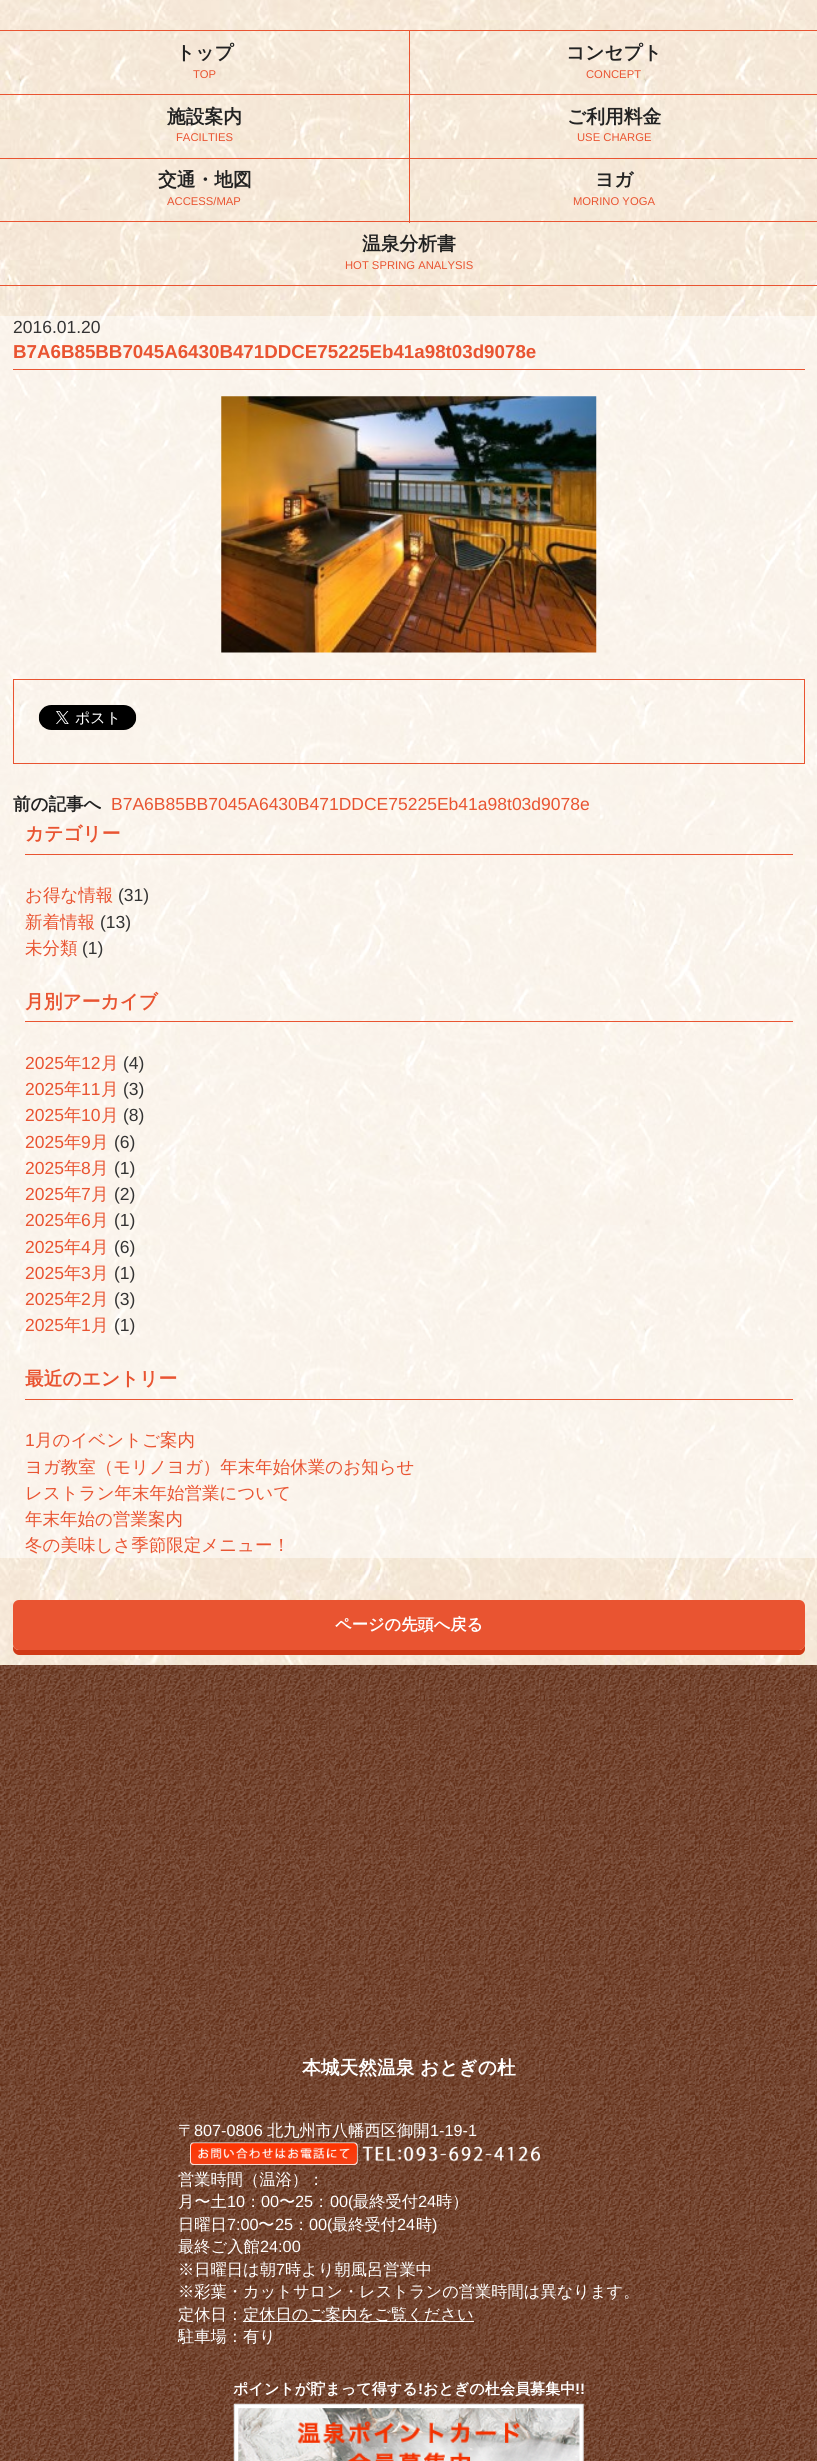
#include <cairo.h>
#include <math.h>
#include <stddef.h>


static void set_color(cairo_t *cr, unsigned color) {
    cairo_set_source_rgb(cr, (color >> 16) / 255.0, (color >> 8 & 255) / 255.0, (color & 255) / 255.0);
}

static void draw_text(cairo_t *cr, double x, double y, const char *s, const char *family, double size, int italic, int bold, unsigned color) {
    cairo_select_font_face(cr, family, italic ? CAIRO_FONT_SLANT_ITALIC : CAIRO_FONT_SLANT_NORMAL,
        bold ? CAIRO_FONT_WEIGHT_BOLD : CAIRO_FONT_WEIGHT_NORMAL);
    cairo_set_font_size(cr, size);
    set_color(cr, color);
    cairo_move_to(cr, x, y);
    cairo_show_text(cr, s);
}

static void fill_rect(cairo_t *cr, double x, double y, double w, double h, unsigned color) {
    set_color(cr, color);
    cairo_rectangle(cr, x, y, w, h);
    cairo_fill(cr);
}

static void rounded_rect(cairo_t *cr, double x, double y, double w, double h, double r) {
    cairo_new_sub_path(cr);
    cairo_arc(cr, x + w - r, y + h - r, r, 0, M_PI / 2);
    cairo_arc(cr, x + r, y + h - r, r, M_PI / 2, M_PI);
    cairo_arc(cr, x + r, y + r, r, M_PI, 1.5 * M_PI);
    cairo_arc(cr, x + w - r, y + r, r, 1.5 * M_PI, 2 * M_PI);
    cairo_close_path(cr);
}

static void draw_image(cairo_t *cr, const char *path, double x, double y, double w, double h) {
    cairo_surface_t *image = cairo_image_surface_create_from_png(path);
    cairo_save(cr);
    cairo_set_source_surface(cr, image, x, y);
    cairo_rectangle(cr, x, y, w, h);
    cairo_fill(cr);
    cairo_restore(cr);
    cairo_surface_destroy(image);
}

int main(void) {
    cairo_surface_t *surface = cairo_image_surface_create(CAIRO_FORMAT_RGB24, 817, 2461);
    cairo_t *cr = cairo_create(surface);
    cairo_font_options_t *options = cairo_font_options_create();
    cairo_font_options_set_hint_metrics(options, CAIRO_HINT_METRICS_OFF);
    cairo_font_options_set_hint_style(options, CAIRO_HINT_STYLE_NONE);
    cairo_set_font_options(cr, options);
    cairo_set_miter_limit(cr, 4);
    set_color(cr, 0xFFFFFF);
    cairo_paint(cr);
    draw_image(cr, "assets/img1.png", 0, 0, 817, 1665);
    fill_rect(cr, 0, 30, 817, 1, 0xE95431);
    fill_rect(cr, 0, 94, 817, 1, 0xE95431);
    draw_text(cr, 176, 59, "トップ", "WenQuanYi Zen Hei", 18.75, 0, 1, 0x222222);
    draw_text(cr, 193, 78, "TOP", "Liberation Sans", 11.25, 0, 0, 0xE95431);
    fill_rect(cr, 409, 30, 1, 65, 0xE95431);
    draw_text(cr, 566, 59, "コンセプト", "WenQuanYi Zen Hei", 18.75, 0, 1, 0x222222);
    draw_text(cr, 586, 78, "CONCEPT", "Liberation Sans", 11.25, 0, 0, 0xE95431);
    fill_rect(cr, 0, 158, 817, 1, 0xE95431);
    draw_text(cr, 167, 123, "施設案内", "WenQuanYi Zen Hei", 18.75, 0, 1, 0x222222);
    draw_text(cr, 176, 141, "FACILTIES", "Liberation Sans", 11.25, 0, 0, 0xE95431);
    fill_rect(cr, 409, 95, 1, 64, 0xE95431);
    draw_text(cr, 567, 123, "ご利用料金", "WenQuanYi Zen Hei", 18.75, 0, 1, 0x222222);
    draw_text(cr, 577, 141, "USE CHARGE", "Liberation Sans", 11.25, 0, 0, 0xE95431);
    fill_rect(cr, 0, 221, 817, 1, 0xE95431);
    draw_text(cr, 158, 186, "交通・地図", "WenQuanYi Zen Hei", 18.75, 0, 1, 0x222222);
    draw_text(cr, 167, 205, "ACCESS/MAP", "Liberation Sans", 11.25, 0, 0, 0xE95431);
    fill_rect(cr, 409, 159, 1, 64, 0xE95431);
    draw_text(cr, 595, 186, "ヨガ", "WenQuanYi Zen Hei", 18.75, 0, 1, 0x222222);
    draw_text(cr, 573, 205, "MORINO YOGA", "Liberation Sans", 11.25, 0, 0, 0xE95431);
    fill_rect(cr, 0, 285, 817, 1, 0xE95431);
    draw_text(cr, 362, 250, "温泉分析書", "WenQuanYi Zen Hei", 18.75, 0, 1, 0x222222);
    draw_text(cr, 345, 269, "HOT SPRING ANALYSIS", "Liberation Sans", 11.25, 0, 0, 0xE95431);
    cairo_set_source_rgba(cr, 1, 1, 1, 0.5);
    cairo_rectangle(cr, 0, 316, 817, 1242);
    cairo_fill(cr);
    draw_text(cr, 13, 333, "2016.01.20", "Liberation Sans", 17.5, 0, 0, 0x333333);
    fill_rect(cr, 13, 369, 792, 1, 0xE95431);
    draw_text(cr, 13, 358, "B7A6B85BB7045A6430B471DDCE75225Eb41a98t03d9078e", "Liberation Sans", 18.75, 0, 1, 0xE95431);
    draw_image(cr, "assets/img2.png", 221, 396, 376, 257);
    cairo_rectangle(cr, 13.5, 679.5, 791, 84);
    cairo_set_line_width(cr, 1);
    cairo_stroke(cr);
    draw_image(cr, "assets/img3.png", 38, 705, 99, 25);
    draw_text(cr, 13, 810, "前の記事へ", "WenQuanYi Zen Hei", 17.5, 0, 1, 0x222222);
    draw_text(cr, 111, 810, "B7A6B85BB7045A6430B471DDCE75225Eb41a98t03d9078e", "Liberation Sans", 17.5, 0, 0, 0xE95431);
    fill_rect(cr, 25, 854, 768, 1, 0xE95431);
    draw_text(cr, 25, 840, "カテゴリー", "WenQuanYi Zen Hei", 18.75, 0, 1, 0xE95431);
    draw_text(cr, 25, 901, "お得な情報", "WenQuanYi Zen Hei Medium", 17.5, 0, 0, 0xE95431);
    draw_text(cr, 118, 901, "(31)", "Liberation Sans", 17.5, 0, 0, 0x333333);
    draw_text(cr, 25, 928, "新着情報", "WenQuanYi Zen Hei Medium", 17.5, 0, 0, 0xE95431);
    draw_text(cr, 100, 928, "(13)", "Liberation Sans", 17.5, 0, 0, 0x333333);
    draw_text(cr, 25, 954, "未分類", "WenQuanYi Zen Hei Medium", 17.5, 0, 0, 0xE95431);
    draw_text(cr, 82, 954, "(1)", "Liberation Sans", 17.5, 0, 0, 0x333333);
    fill_rect(cr, 25, 1021, 768, 1, 0xE95431);
    draw_text(cr, 25, 1008, "月別アーカイブ", "WenQuanYi Zen Hei", 18.75, 0, 1, 0xE95431);
    draw_text(cr, 25, 1069, "2025", "Liberation Sans", 17.5, 0, 0, 0xE95431);
    draw_text(cr, 64, 1069, "年", "WenQuanYi Zen Hei Medium", 17.5, 0, 0, 0xE95431);
    draw_text(cr, 81, 1069, "12", "Liberation Sans", 17.5, 0, 0, 0xE95431);
    draw_text(cr, 101, 1069, "月", "WenQuanYi Zen Hei Medium", 17.5, 0, 0, 0xE95431);
    draw_text(cr, 123, 1069, "(4)", "Liberation Sans", 17.5, 0, 0, 0x333333);
    draw_text(cr, 25, 1095, "2025", "Liberation Sans", 17.5, 0, 0, 0xE95431);
    draw_text(cr, 64, 1095, "年", "WenQuanYi Zen Hei Medium", 17.5, 0, 0, 0xE95431);
    draw_text(cr, 81, 1095, "11", "Liberation Sans", 17.5, 0, 0, 0xE95431);
    draw_text(cr, 101, 1095, "月", "WenQuanYi Zen Hei Medium", 17.5, 0, 0, 0xE95431);
    draw_text(cr, 123, 1095, "(3)", "Liberation Sans", 17.5, 0, 0, 0x333333);
    draw_text(cr, 25, 1121, "2025", "Liberation Sans", 17.5, 0, 0, 0xE95431);
    draw_text(cr, 64, 1121, "年", "WenQuanYi Zen Hei Medium", 17.5, 0, 0, 0xE95431);
    draw_text(cr, 81, 1121, "10", "Liberation Sans", 17.5, 0, 0, 0xE95431);
    draw_text(cr, 101, 1121, "月", "WenQuanYi Zen Hei Medium", 17.5, 0, 0, 0xE95431);
    draw_text(cr, 123, 1121, "(8)", "Liberation Sans", 17.5, 0, 0, 0x333333);
    draw_text(cr, 25, 1148, "2025", "Liberation Sans", 17.5, 0, 0, 0xE95431);
    draw_text(cr, 64, 1148, "年", "WenQuanYi Zen Hei Medium", 17.5, 0, 0, 0xE95431);
    draw_text(cr, 81, 1148, "9", "Liberation Sans", 17.5, 0, 0, 0xE95431);
    draw_text(cr, 91, 1148, "月", "WenQuanYi Zen Hei Medium", 17.5, 0, 0, 0xE95431);
    draw_text(cr, 114, 1148, "(6)", "Liberation Sans", 17.5, 0, 0, 0x333333);
    draw_text(cr, 25, 1174, "2025", "Liberation Sans", 17.5, 0, 0, 0xE95431);
    draw_text(cr, 64, 1174, "年", "WenQuanYi Zen Hei Medium", 17.5, 0, 0, 0xE95431);
    draw_text(cr, 81, 1174, "8", "Liberation Sans", 17.5, 0, 0, 0xE95431);
    draw_text(cr, 91, 1174, "月", "WenQuanYi Zen Hei Medium", 17.5, 0, 0, 0xE95431);
    draw_text(cr, 114, 1174, "(1)", "Liberation Sans", 17.5, 0, 0, 0x333333);
    draw_text(cr, 25, 1200, "2025", "Liberation Sans", 17.5, 0, 0, 0xE95431);
    draw_text(cr, 64, 1200, "年", "WenQuanYi Zen Hei Medium", 17.5, 0, 0, 0xE95431);
    draw_text(cr, 81, 1200, "7", "Liberation Sans", 17.5, 0, 0, 0xE95431);
    draw_text(cr, 91, 1200, "月", "WenQuanYi Zen Hei Medium", 17.5, 0, 0, 0xE95431);
    draw_text(cr, 114, 1200, "(2)", "Liberation Sans", 17.5, 0, 0, 0x333333);
    draw_text(cr, 25, 1226, "2025", "Liberation Sans", 17.5, 0, 0, 0xE95431);
    draw_text(cr, 64, 1226, "年", "WenQuanYi Zen Hei Medium", 17.5, 0, 0, 0xE95431);
    draw_text(cr, 81, 1226, "6", "Liberation Sans", 17.5, 0, 0, 0xE95431);
    draw_text(cr, 91, 1226, "月", "WenQuanYi Zen Hei Medium", 17.5, 0, 0, 0xE95431);
    draw_text(cr, 114, 1226, "(1)", "Liberation Sans", 17.5, 0, 0, 0x333333);
    draw_text(cr, 25, 1253, "2025", "Liberation Sans", 17.5, 0, 0, 0xE95431);
    draw_text(cr, 64, 1253, "年", "WenQuanYi Zen Hei Medium", 17.5, 0, 0, 0xE95431);
    draw_text(cr, 81, 1253, "4", "Liberation Sans", 17.5, 0, 0, 0xE95431);
    draw_text(cr, 91, 1253, "月", "WenQuanYi Zen Hei Medium", 17.5, 0, 0, 0xE95431);
    draw_text(cr, 114, 1253, "(6)", "Liberation Sans", 17.5, 0, 0, 0x333333);
    draw_text(cr, 25, 1279, "2025", "Liberation Sans", 17.5, 0, 0, 0xE95431);
    draw_text(cr, 64, 1279, "年", "WenQuanYi Zen Hei Medium", 17.5, 0, 0, 0xE95431);
    draw_text(cr, 81, 1279, "3", "Liberation Sans", 17.5, 0, 0, 0xE95431);
    draw_text(cr, 91, 1279, "月", "WenQuanYi Zen Hei Medium", 17.5, 0, 0, 0xE95431);
    draw_text(cr, 114, 1279, "(1)", "Liberation Sans", 17.5, 0, 0, 0x333333);
    draw_text(cr, 25, 1305, "2025", "Liberation Sans", 17.5, 0, 0, 0xE95431);
    draw_text(cr, 64, 1305, "年", "WenQuanYi Zen Hei Medium", 17.5, 0, 0, 0xE95431);
    draw_text(cr, 81, 1305, "2", "Liberation Sans", 17.5, 0, 0, 0xE95431);
    draw_text(cr, 91, 1305, "月", "WenQuanYi Zen Hei Medium", 17.5, 0, 0, 0xE95431);
    draw_text(cr, 114, 1305, "(3)", "Liberation Sans", 17.5, 0, 0, 0x333333);
    draw_text(cr, 25, 1331, "2025", "Liberation Sans", 17.5, 0, 0, 0xE95431);
    draw_text(cr, 64, 1331, "年", "WenQuanYi Zen Hei Medium", 17.5, 0, 0, 0xE95431);
    draw_text(cr, 81, 1331, "1", "Liberation Sans", 17.5, 0, 0, 0xE95431);
    draw_text(cr, 91, 1331, "月", "WenQuanYi Zen Hei Medium", 17.5, 0, 0, 0xE95431);
    draw_text(cr, 114, 1331, "(1)", "Liberation Sans", 17.5, 0, 0, 0x333333);
    fill_rect(cr, 25, 1399, 768, 1, 0xE95431);
    draw_text(cr, 25, 1385, "最近のエントリー", "WenQuanYi Zen Hei", 18.75, 0, 1, 0xE95431);
    draw_text(cr, 25, 1446, "1", "Liberation Sans", 17.5, 0, 0, 0xE95431);
    draw_text(cr, 35, 1446, "月のイベントご案内", "WenQuanYi Zen Hei Medium", 17.5, 0, 0, 0xE95431);
    draw_text(cr, 25, 1473, "ヨガ教室（モリノヨガ）年末年始休業のお知らせ", "WenQuanYi Zen Hei Medium", 17.5, 0, 0, 0xE95431);
    draw_text(cr, 25, 1499, "レストラン年末年始営業について", "WenQuanYi Zen Hei Medium", 17.5, 0, 0, 0xE95431);
    draw_text(cr, 25, 1525, "年末年始の営業案内", "WenQuanYi Zen Hei Medium", 17.5, 0, 0, 0xE95431);
    draw_text(cr, 25, 1551, "冬の美味しさ季節限定メニュー！", "WenQuanYi Zen Hei Medium", 17.5, 0, 0, 0xE95431);
    set_color(cr, 0xD13A16);
    cairo_new_path(cr);
    cairo_move_to(cr, 13, 1646);
    cairo_line_to(cr, 13, 1649);
    cairo_curve_to(cr, 13, 1652, 16, 1655, 19, 1655);
    cairo_line_to(cr, 799, 1655);
    cairo_curve_to(cr, 802, 1655, 805, 1652, 805, 1649);
    cairo_line_to(cr, 805, 1644);
    cairo_curve_to(cr, 805, 1647, 802, 1650, 799, 1650);
    cairo_line_to(cr, 19, 1650);
    cairo_curve_to(cr, 16, 1650, 14, 1648, 13, 1646);
    cairo_close_path(cr);
    cairo_fill(cr);
    set_color(cr, 0xE95431);
    rounded_rect(cr, 13, 1600, 792, 50, 6);
    cairo_fill(cr);
    draw_text(cr, 335, 1630, "ページの先頭へ戻る", "WenQuanYi Zen Hei", 16.25, 0, 1, 0xFFFFFF);
    draw_image(cr, "assets/img4.png", 0, 1665, 817, 796);
    draw_text(cr, 302, 2074, "本城天然温泉 おとぎの杜", "WenQuanYi Zen Hei", 18.75, 0, 1, 0xFFFFFF);
    draw_text(cr, 178, 2136, "〒", "WenQuanYi Zen Hei Medium", 16.25, 0, 0, 0xFFFFFF);
    draw_text(cr, 194, 2136, "807-0806", "Liberation Sans", 16.25, 0, 0, 0xFFFFFF);
    draw_text(cr, 267, 2136, "北九州市八幡西区御開", "WenQuanYi Zen Hei Medium", 16.25, 0, 0, 0xFFFFFF);
    draw_text(cr, 430, 2136, "1-19-1", "Liberation Sans", 16.25, 0, 0, 0xFFFFFF);
    draw_image(cr, "assets/img5.png", 190, 2142, 350, 23);
    draw_text(cr, 178, 2185, "営業時間（温浴）：", "WenQuanYi Zen Hei Medium", 16.25, 0, 0, 0xFFFFFF);
    draw_text(cr, 178, 2207, "月〜土", "WenQuanYi Zen Hei Medium", 16.25, 0, 0, 0xFFFFFF);
    draw_text(cr, 227, 2207, "10", "Liberation Sans", 16.25, 0, 0, 0xFFFFFF);
    draw_text(cr, 245, 2207, "：", "WenQuanYi Zen Hei Medium", 16.25, 0, 0, 0xFFFFFF);
    draw_text(cr, 261, 2207, "00", "Liberation Sans", 16.25, 0, 0, 0xFFFFFF);
    draw_text(cr, 279, 2207, "〜", "WenQuanYi Zen Hei Medium", 16.25, 0, 0, 0xFFFFFF);
    draw_text(cr, 295, 2207, "25", "Liberation Sans", 16.25, 0, 0, 0xFFFFFF);
    draw_text(cr, 313, 2207, "：", "WenQuanYi Zen Hei Medium", 16.25, 0, 0, 0xFFFFFF);
    draw_text(cr, 330, 2207, "00(", "Liberation Sans", 16.25, 0, 0, 0xFFFFFF);
    draw_text(cr, 353, 2207, "最終受付", "WenQuanYi Zen Hei Medium", 16.25, 0, 0, 0xFFFFFF);
    draw_text(cr, 418, 2207, "24", "Liberation Sans", 16.25, 0, 0, 0xFFFFFF);
    draw_text(cr, 436, 2207, "時）", "WenQuanYi Zen Hei Medium", 16.25, 0, 0, 0xFFFFFF);
    draw_text(cr, 178, 2230, "日曜日", "WenQuanYi Zen Hei Medium", 16.25, 0, 0, 0xFFFFFF);
    draw_text(cr, 227, 2230, "7:00", "Liberation Sans", 16.25, 0, 0, 0xFFFFFF);
    draw_text(cr, 258, 2230, "〜", "WenQuanYi Zen Hei Medium", 16.25, 0, 0, 0xFFFFFF);
    draw_text(cr, 275, 2230, "25", "Liberation Sans", 16.25, 0, 0, 0xFFFFFF);
    draw_text(cr, 293, 2230, "：", "WenQuanYi Zen Hei Medium", 16.25, 0, 0, 0xFFFFFF);
    draw_text(cr, 309, 2230, "00(", "Liberation Sans", 16.25, 0, 0, 0xFFFFFF);
    draw_text(cr, 332, 2230, "最終受付", "WenQuanYi Zen Hei Medium", 16.25, 0, 0, 0xFFFFFF);
    draw_text(cr, 397, 2230, "24", "Liberation Sans", 16.25, 0, 0, 0xFFFFFF);
    draw_text(cr, 416, 2230, "時", "WenQuanYi Zen Hei Medium", 16.25, 0, 0, 0xFFFFFF);
    draw_text(cr, 432, 2230, ")", "Liberation Sans", 16.25, 0, 0, 0xFFFFFF);
    draw_text(cr, 178, 2252, "最終ご入館", "WenQuanYi Zen Hei Medium", 16.25, 0, 0, 0xFFFFFF);
    draw_text(cr, 260, 2252, "24:00", "Liberation Sans", 16.25, 0, 0, 0xFFFFFF);
    draw_text(cr, 178, 2275, "※日曜日は朝", "WenQuanYi Zen Hei Medium", 16.25, 0, 0, 0xFFFFFF);
    draw_text(cr, 276, 2275, "7", "Liberation Sans", 16.25, 0, 0, 0xFFFFFF);
    draw_text(cr, 285, 2275, "時より朝風呂営業中", "WenQuanYi Zen Hei Medium", 16.25, 0, 0, 0xFFFFFF);
    draw_text(cr, 178, 2297, "※彩葉・カットサロン・レストランの営業時間は異なります。", "WenQuanYi Zen Hei Medium", 16.25, 0, 0, 0xFFFFFF);
    draw_text(cr, 178, 2320, "定休日：", "WenQuanYi Zen Hei Medium", 16.25, 0, 0, 0xFFFFFF);
    fill_rect(cr, 243, 2321, 231, 1, 0xFFFFFF);
    draw_text(cr, 243, 2320, "定休日のご案内をご覧ください", "WenQuanYi Zen Hei Medium", 16.25, 0, 0, 0xFFFFFF);
    draw_text(cr, 178, 2342, "駐車場：有り", "WenQuanYi Zen Hei Medium", 16.25, 0, 0, 0xFFFFFF);
    draw_text(cr, 233, 2394, "ポイントが貯まって得する", "WenQuanYi Zen Hei", 15.1, 0, 1, 0xFFFFFF);
    draw_text(cr, 418, 2394, "!", "Liberation Sans", 15.1, 0, 1, 0xFFFFFF);
    draw_text(cr, 423, 2394, "おとぎの杜会員募集中", "WenQuanYi Zen Hei", 15.1, 0, 1, 0xFFFFFF);
    draw_text(cr, 575, 2394, "!!", "Liberation Sans", 15.1, 0, 1, 0xFFFFFF);
    draw_image(cr, "assets/img6.png", 233, 2403, 351, 58);
    cairo_surface_write_to_png(surface, "output.png");
    cairo_font_options_destroy(options);
    cairo_destroy(cr);
    cairo_surface_destroy(surface);
    return 0;
}
